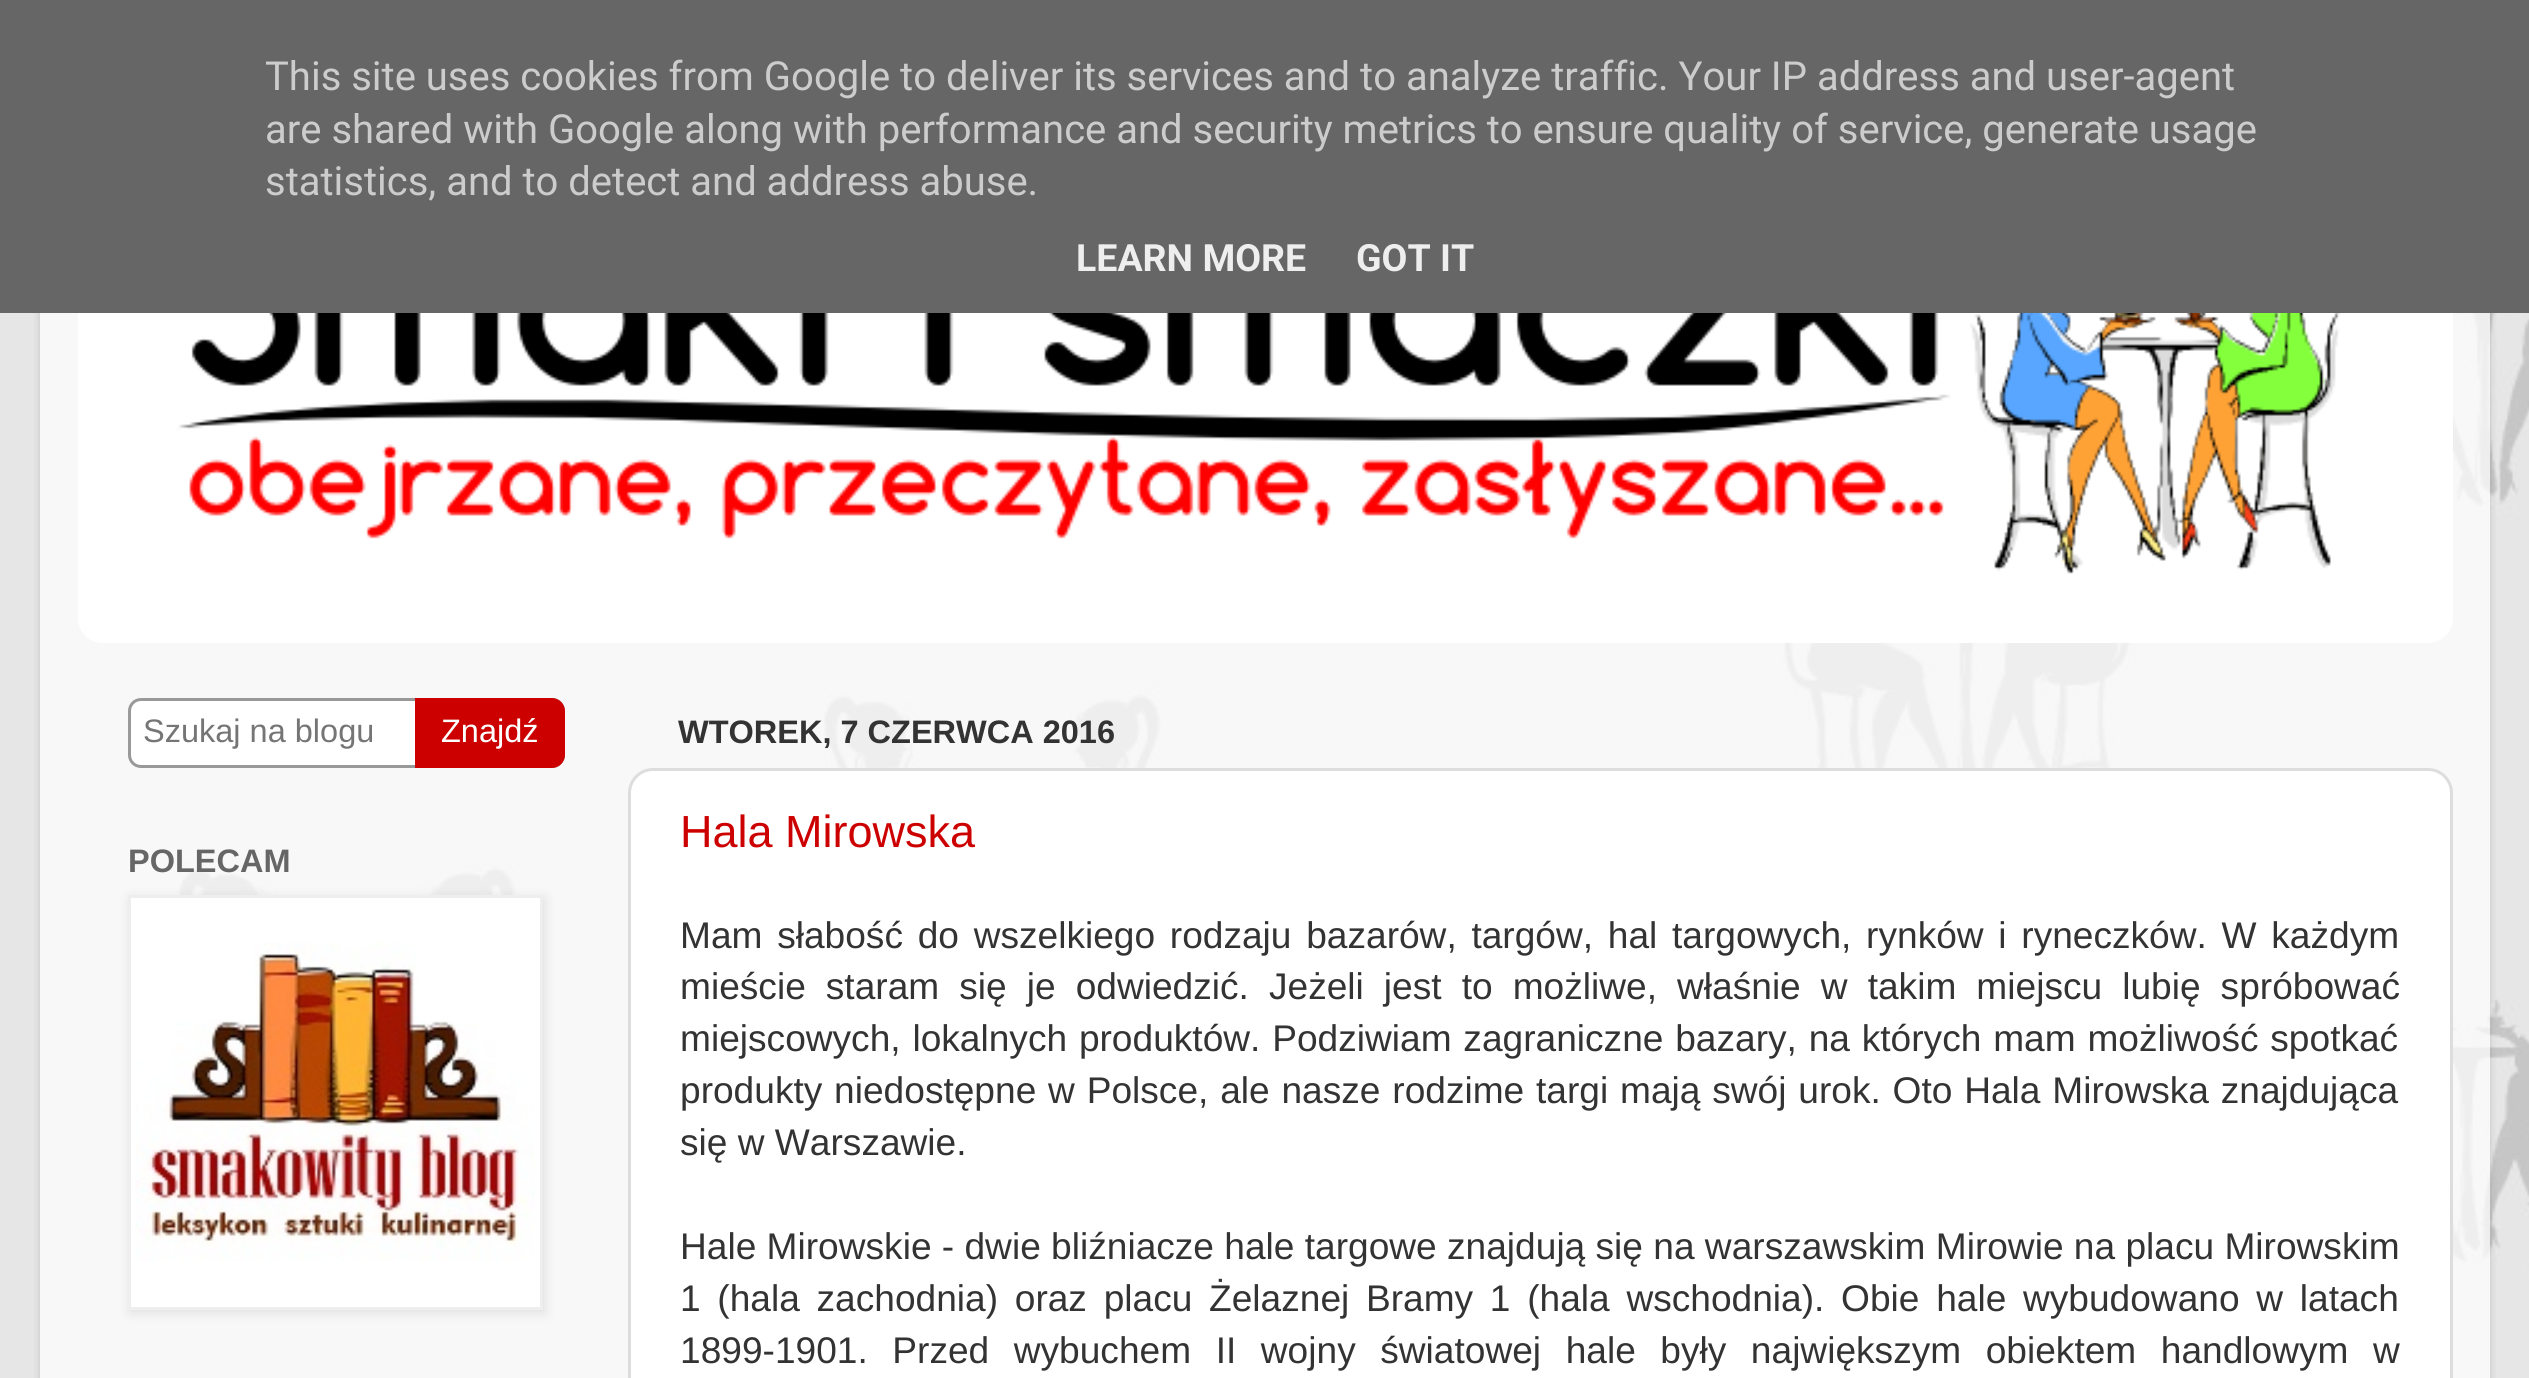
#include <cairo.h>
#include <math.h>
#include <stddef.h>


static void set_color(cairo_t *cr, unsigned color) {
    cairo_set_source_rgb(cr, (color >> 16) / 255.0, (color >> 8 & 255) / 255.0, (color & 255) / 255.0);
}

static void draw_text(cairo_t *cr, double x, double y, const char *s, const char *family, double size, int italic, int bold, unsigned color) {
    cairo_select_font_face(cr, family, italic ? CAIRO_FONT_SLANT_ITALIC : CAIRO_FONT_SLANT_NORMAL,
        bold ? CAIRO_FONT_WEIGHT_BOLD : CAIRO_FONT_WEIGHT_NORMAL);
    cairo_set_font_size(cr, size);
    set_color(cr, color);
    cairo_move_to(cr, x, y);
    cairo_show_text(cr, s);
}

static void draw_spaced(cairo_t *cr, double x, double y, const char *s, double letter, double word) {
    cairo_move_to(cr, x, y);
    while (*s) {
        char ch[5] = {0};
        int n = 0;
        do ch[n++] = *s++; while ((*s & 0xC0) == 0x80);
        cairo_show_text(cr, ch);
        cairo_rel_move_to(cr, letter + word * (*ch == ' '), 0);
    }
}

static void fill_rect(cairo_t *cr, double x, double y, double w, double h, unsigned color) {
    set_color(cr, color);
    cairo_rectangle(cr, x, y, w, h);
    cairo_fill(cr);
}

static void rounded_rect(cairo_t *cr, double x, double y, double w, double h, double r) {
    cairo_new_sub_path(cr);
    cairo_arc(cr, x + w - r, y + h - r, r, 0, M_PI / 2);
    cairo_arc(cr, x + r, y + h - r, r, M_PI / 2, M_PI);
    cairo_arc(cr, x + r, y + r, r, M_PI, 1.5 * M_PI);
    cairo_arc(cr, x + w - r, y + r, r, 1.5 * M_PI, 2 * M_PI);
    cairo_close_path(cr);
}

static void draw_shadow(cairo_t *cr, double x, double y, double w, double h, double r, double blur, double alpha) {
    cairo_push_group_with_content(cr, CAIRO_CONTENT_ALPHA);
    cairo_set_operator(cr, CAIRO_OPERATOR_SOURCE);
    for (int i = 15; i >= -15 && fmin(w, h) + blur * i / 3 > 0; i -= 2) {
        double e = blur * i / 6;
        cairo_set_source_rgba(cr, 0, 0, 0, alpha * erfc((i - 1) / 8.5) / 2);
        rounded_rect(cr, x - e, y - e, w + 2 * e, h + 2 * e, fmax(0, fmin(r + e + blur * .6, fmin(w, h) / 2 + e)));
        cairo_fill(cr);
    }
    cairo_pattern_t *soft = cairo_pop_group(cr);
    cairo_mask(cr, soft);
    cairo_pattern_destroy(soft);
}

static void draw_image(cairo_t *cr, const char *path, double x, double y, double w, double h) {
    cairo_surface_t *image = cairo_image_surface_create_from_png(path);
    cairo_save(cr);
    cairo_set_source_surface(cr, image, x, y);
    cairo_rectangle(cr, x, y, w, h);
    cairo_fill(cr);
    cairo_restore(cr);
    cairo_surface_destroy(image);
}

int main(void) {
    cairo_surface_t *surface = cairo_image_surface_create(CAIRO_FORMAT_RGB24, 2529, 1378);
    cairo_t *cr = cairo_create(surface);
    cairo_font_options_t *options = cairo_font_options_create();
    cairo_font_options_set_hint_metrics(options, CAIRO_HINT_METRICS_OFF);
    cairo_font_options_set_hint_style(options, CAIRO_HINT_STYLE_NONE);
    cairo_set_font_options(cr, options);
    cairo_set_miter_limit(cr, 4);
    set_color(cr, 0xFFFFFF);
    cairo_paint(cr);
    draw_image(cr, "assets/img1.png", 0, 313, 2529, 1065);
    cairo_save(cr);
    cairo_set_fill_rule(cr, CAIRO_FILL_RULE_EVEN_ODD);
    cairo_new_path(cr);
    cairo_move_to(cr, 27, 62);
    cairo_line_to(cr, 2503, 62);
    cairo_line_to(cr, 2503, 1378);
    cairo_line_to(cr, 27, 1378);
    cairo_close_path(cr);
    cairo_move_to(cr, 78, 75);
    cairo_line_to(cr, 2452, 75);
    cairo_curve_to(cr, 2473, 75, 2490, 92, 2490, 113);
    cairo_line_to(cr, 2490, 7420);
    cairo_curve_to(cr, 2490, 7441, 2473, 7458, 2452, 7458);
    cairo_line_to(cr, 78, 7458);
    cairo_curve_to(cr, 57, 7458, 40, 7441, 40, 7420);
    cairo_line_to(cr, 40, 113);
    cairo_curve_to(cr, 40, 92, 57, 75, 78, 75);
    cairo_close_path(cr);
    cairo_clip(cr);
    set_color(cr, 0x000000);
    draw_shadow(cr, 40, 75, 2450, 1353, 38, 4, 0.15);
    cairo_restore(cr);
    draw_image(cr, "assets/img2.png", 40, 313, 2450, 1065);
    set_color(cr, 0xFFFFFF);
    rounded_rect(cr, 78, 113, 2375, 530, 25);
    cairo_fill(cr);
    fill_rect(cr, 0, 0, 2529, 313, 0x666666);
    draw_text(cr, 265, 90, "This site uses cookies from Google to deliver its services and to analyze traffic. Your IP address and user-agent", "Roboto", 40, 0, 0, 0xCCCCCC);
    draw_text(cr, 265, 143, "are shared with Google along with performance and security metrics to ensure quality of service, generate usage", "Roboto", 40, 0, 0, 0xCCCCCC);
    draw_text(cr, 265, 195, "statistics, and to detect and address abuse.", "Roboto", 40, 0, 0, 0xCCCCCC);
    draw_text(cr, 1076, 271, "LEARN MORE", "Roboto", 37.5, 0, 1, 0xEEEEEE);
    draw_text(cr, 1356, 271, "GOT IT", "Roboto", 37.5, 0, 1, 0xEEEEEE);
    draw_image(cr, "assets/img3.png", 78, 313, 2263, 261);
    set_color(cr, 0xFFFFFF);
    rounded_rect(cr, 129.5, 699.5, 434, 67, 11.5);
    cairo_fill_preserve(cr);
    set_color(cr, 0x999999);
    cairo_set_line_width(cr, 3);
    cairo_stroke(cr);
    draw_text(cr, 143, 742, "Szukaj na blogu", "Liberation Sans", 32.5, 0, 0, 0x757575);
    set_color(cr, 0xCD0000);
    cairo_new_path(cr);
    cairo_move_to(cr, 415, 698);
    cairo_line_to(cr, 552, 698);
    cairo_curve_to(cr, 559, 698, 565, 704, 565, 711);
    cairo_line_to(cr, 565, 755);
    cairo_curve_to(cr, 565, 762, 559, 768, 552, 768);
    cairo_line_to(cr, 415, 768);
    cairo_close_path(cr);
    cairo_fill(cr);
    draw_text(cr, 441, 742, "Znajdź", "Liberation Sans", 32.5, 0, 0, 0xFFFFFF);
    draw_text(cr, 128, 872, "POLECAM", "Liberation Sans", 32.5, 0, 1, 0x666666);
    set_color(cr, 0x000000);
    draw_shadow(cr, 130, 898, 415, 415, 0, 6, 0.1);
    set_color(cr, 0xFFFFFF);
    cairo_rectangle(cr, 129.5, 896.5, 412, 412);
    cairo_fill_preserve(cr);
    set_color(cr, 0xEEEEEE);
    cairo_stroke(cr);
    draw_image(cr, "assets/img4.png", 135, 942, 400, 319);
    draw_text(cr, 678, 743, "WTOREK, 7 CZERWCA 2016", "Liberation Sans", 32.5, 0, 1, 0x333333);
    set_color(cr, 0xFFFFFF);
    rounded_rect(cr, 629.5, 769.5, 1822, 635, 23.5);
    cairo_fill_preserve(cr);
    set_color(cr, 0xDDDDDD);
    cairo_stroke(cr);
    draw_text(cr, 680, 847, "Hala Mirowska", "Liberation Sans", 45, 0, 0, 0xCD0000);
    cairo_set_font_size(cr, 37.1);
    set_color(cr, 0x333333);
    draw_spaced(cr, 680, 948, "Mam słabość do wszelkiego rodzaju bazarów, targów, hal targowych, rynków i ryneczków. W każdym", 0, 4.4);
    draw_spaced(cr, 680, 999, "mieście staram się je odwiedzić. Jeżeli jest to możliwe, właśnie w takim miejscu lubię spróbować", 0, 9.75);
    draw_spaced(cr, 680, 1051, "miejscowych, lokalnych produktów. Podziwiam zagraniczne bazary, na których mam możliwość spotkać", 0, 1.5);
    draw_spaced(cr, 680, 1103, "produkty niedostępne w Polsce, ale nasze rodzime targi mają swój urok. Oto Hala Mirowska znajdująca", 0, 1.5);
    draw_text(cr, 680, 1155, "się w Warszawie.", "Liberation Sans", 37.1, 0, 0, 0x333333);
    draw_text(cr, 680, 1259, "Hale Mirowskie - dwie bliźniacze hale targowe znajdują się na warszawskim Mirowie na placu Mirowskim", "Liberation Sans", 37.1, 0, 0, 0x333333);
    draw_spaced(cr, 680, 1311, "1 (hala zachodnia) oraz placu Żelaznej Bramy 1 (hala wschodnia). Obie hale wybudowano w latach", 0, 6.4);
    draw_spaced(cr, 680, 1363, "1899-1901. Przed wybuchem II wojny światowej hale były największym obiektem handlowym w", 0, 14.25);
    cairo_surface_write_to_png(surface, "output.png");
    cairo_font_options_destroy(options);
    cairo_destroy(cr);
    cairo_surface_destroy(surface);
    return 0;
}
